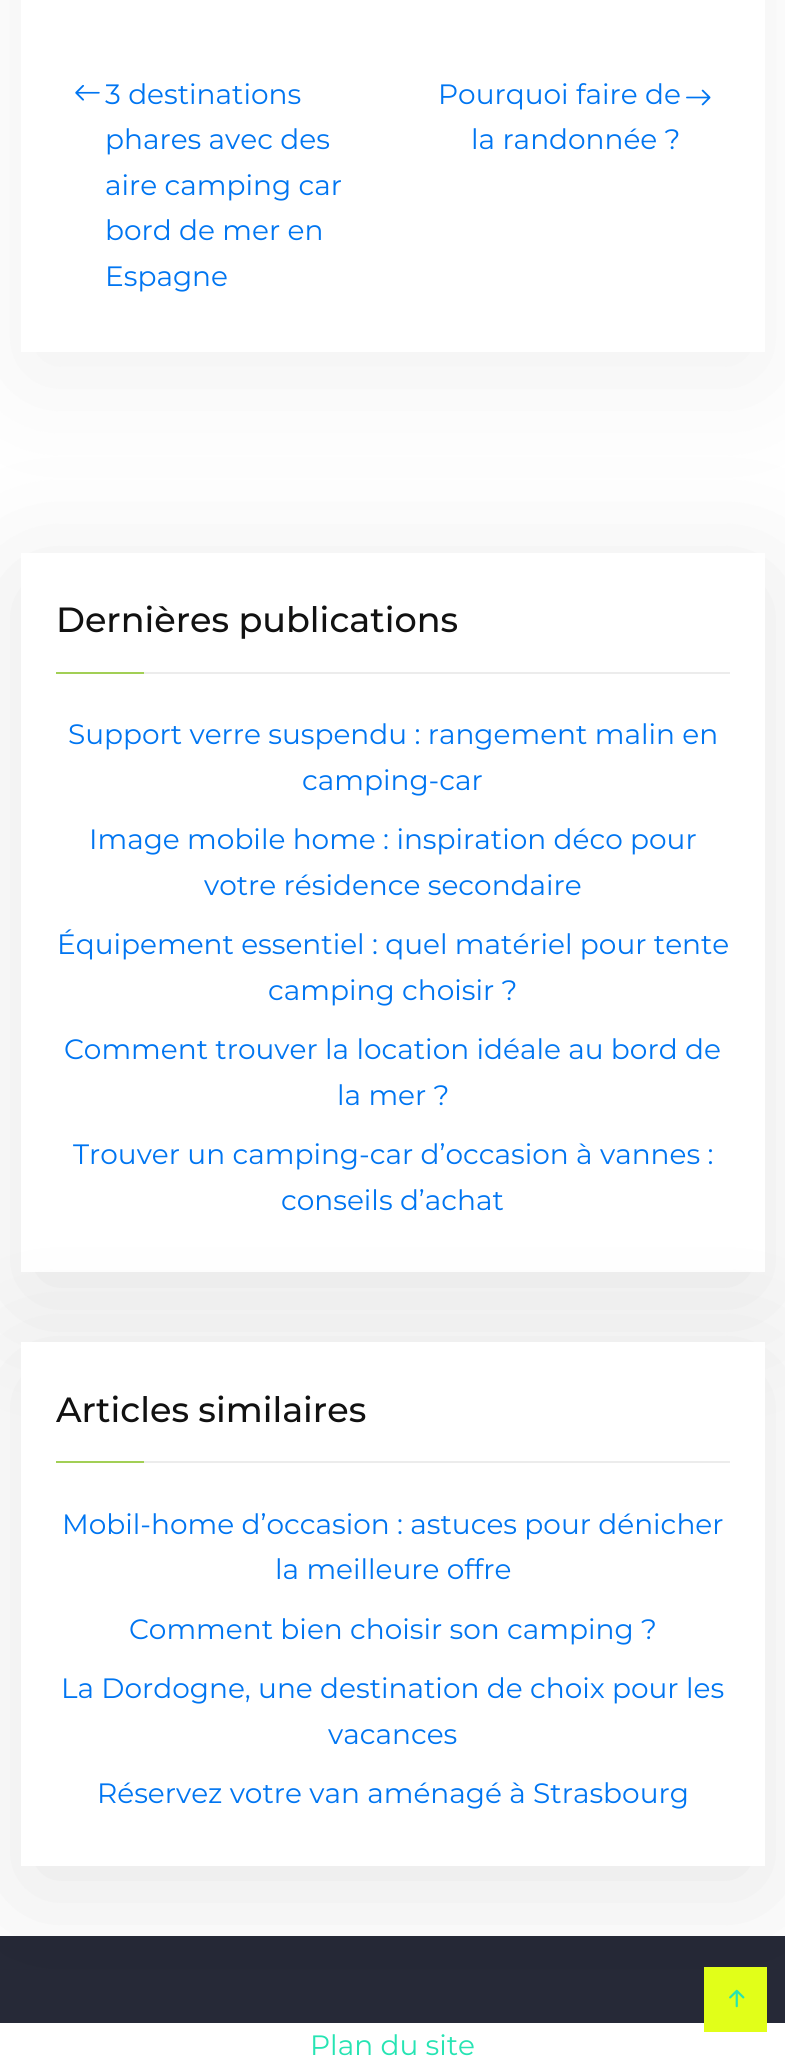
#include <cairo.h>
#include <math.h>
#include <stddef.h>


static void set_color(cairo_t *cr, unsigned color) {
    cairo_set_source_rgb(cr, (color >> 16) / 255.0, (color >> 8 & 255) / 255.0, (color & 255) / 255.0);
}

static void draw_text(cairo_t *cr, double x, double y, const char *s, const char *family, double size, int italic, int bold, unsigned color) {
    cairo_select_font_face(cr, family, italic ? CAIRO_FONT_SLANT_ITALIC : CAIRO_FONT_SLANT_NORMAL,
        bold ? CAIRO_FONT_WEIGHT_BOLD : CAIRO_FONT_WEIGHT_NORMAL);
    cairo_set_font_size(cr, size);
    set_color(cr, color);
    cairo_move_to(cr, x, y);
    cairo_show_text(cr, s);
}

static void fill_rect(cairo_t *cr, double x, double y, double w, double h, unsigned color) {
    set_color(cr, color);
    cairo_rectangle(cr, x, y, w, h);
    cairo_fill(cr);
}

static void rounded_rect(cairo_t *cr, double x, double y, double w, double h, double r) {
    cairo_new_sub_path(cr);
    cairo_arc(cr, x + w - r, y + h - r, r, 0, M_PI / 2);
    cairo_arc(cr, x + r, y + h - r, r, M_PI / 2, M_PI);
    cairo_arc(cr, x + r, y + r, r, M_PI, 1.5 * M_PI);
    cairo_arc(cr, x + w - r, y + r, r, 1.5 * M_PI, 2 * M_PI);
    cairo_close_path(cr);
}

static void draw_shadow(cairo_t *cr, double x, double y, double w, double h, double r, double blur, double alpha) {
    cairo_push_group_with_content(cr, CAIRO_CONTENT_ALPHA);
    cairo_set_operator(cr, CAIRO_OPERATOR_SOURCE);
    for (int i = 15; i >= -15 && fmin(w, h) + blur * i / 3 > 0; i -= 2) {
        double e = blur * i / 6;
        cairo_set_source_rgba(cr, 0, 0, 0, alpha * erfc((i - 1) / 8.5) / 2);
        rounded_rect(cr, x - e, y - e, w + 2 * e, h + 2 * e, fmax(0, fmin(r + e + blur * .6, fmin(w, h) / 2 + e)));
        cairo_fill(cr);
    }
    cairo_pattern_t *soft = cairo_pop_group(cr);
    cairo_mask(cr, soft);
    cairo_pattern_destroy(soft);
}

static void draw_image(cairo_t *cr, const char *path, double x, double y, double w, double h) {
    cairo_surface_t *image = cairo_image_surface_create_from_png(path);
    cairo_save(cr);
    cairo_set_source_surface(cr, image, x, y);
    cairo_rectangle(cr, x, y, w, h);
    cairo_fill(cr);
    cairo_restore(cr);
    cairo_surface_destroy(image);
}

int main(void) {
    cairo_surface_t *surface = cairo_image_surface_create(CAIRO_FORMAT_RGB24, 785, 2068);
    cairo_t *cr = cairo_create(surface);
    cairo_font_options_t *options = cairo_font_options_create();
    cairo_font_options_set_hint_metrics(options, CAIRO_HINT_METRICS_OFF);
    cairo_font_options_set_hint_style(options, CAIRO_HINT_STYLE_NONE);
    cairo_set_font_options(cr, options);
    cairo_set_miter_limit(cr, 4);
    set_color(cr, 0xFFFFFF);
    cairo_paint(cr);
    set_color(cr, 0x000000);
    draw_shadow(cr, 21, -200, 744, 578, 0, 66.5, 0.06);
    fill_rect(cr, 21, 0, 744, 352, 0xFFFFFF);
    draw_image(cr, "assets/img1.png", 75, 85, 25, 16);
    draw_text(cr, 105, 104, "3 destinations", "Montserrat", 28, 0, 0, 0x0075F1);
    draw_text(cr, 105, 149, "phares avec des", "Montserrat", 28, 0, 0, 0x0075F1);
    draw_text(cr, 105, 195, "aire camping car", "Montserrat", 28, 0, 0, 0x0075F1);
    draw_text(cr, 105, 240, "bord de mer en", "Montserrat", 28, 0, 0, 0x0075F1);
    draw_text(cr, 105, 286, "Espagne", "Montserrat", 28, 0, 0, 0x0075F1);
    draw_text(cr, 438, 104, "Pourquoi faire de", "Montserrat", 28, 0, 0, 0x0075F1);
    draw_image(cr, "assets/img2.png", 686, 89, 25, 17);
    draw_text(cr, 471, 149, "la randonnée ?", "Montserrat", 28, 0, 0, 0x0075F1);
    set_color(cr, 0x000000);
    draw_shadow(cr, 21, 579, 744, 720, 0, 66.5, 0.1);
    fill_rect(cr, 21, 553, 744, 719, 0xFFFFFF);
    draw_text(cr, 56, 632, "Dernières publications", "Montserrat Medium", 35, 0, 0, 0x111111);
    fill_rect(cr, 56, 672, 88, 2, 0xA2CF55);
    fill_rect(cr, 144, 672, 586, 2, 0xECECEC);
    draw_text(cr, 68, 744, "Support verre suspendu : rangement malin en", "Montserrat", 28, 0, 0, 0x0075F1);
    draw_text(cr, 302, 790, "camping-car", "Montserrat", 28, 0, 0, 0x0075F1);
    draw_text(cr, 89, 849, "Image mobile home : inspiration déco pour", "Montserrat", 28, 0, 0, 0x0075F1);
    draw_text(cr, 204, 895, "votre résidence secondaire", "Montserrat", 28, 0, 0, 0x0075F1);
    draw_text(cr, 57, 954, "Équipement essentiel : quel matériel pour tente", "Montserrat", 28, 0, 0, 0x0075F1);
    draw_text(cr, 268, 1000, "camping choisir ?", "Montserrat", 28, 0, 0, 0x0075F1);
    draw_text(cr, 64, 1059, "Comment trouver la location idéale au bord de", "Montserrat", 28, 0, 0, 0x0075F1);
    draw_text(cr, 337, 1105, "la mer ?", "Montserrat", 28, 0, 0, 0x0075F1);
    fill_rect(cr, 0, 1936, 785, 87, 0x262937);
    set_color(cr, 0x000000);
    draw_shadow(cr, 21, 1369, 744, 523, 0, 66.5, 0.1);
    draw_text(cr, 73, 1164, "Trouver un camping-car d’occasion à vannes :", "Montserrat", 28, 0, 0, 0x0075F1);
    draw_text(cr, 281, 1210, "conseils d’achat", "Montserrat", 28, 0, 0, 0x0075F1);
    fill_rect(cr, 21, 1342, 744, 524, 0xFFFFFF);
    draw_text(cr, 56, 1422, "Articles similaires", "Montserrat Medium", 35, 0, 0, 0x111111);
    fill_rect(cr, 56, 1461, 88, 2, 0xA2CF55);
    fill_rect(cr, 144, 1461, 586, 2, 0xECECEC);
    draw_text(cr, 62, 1534, "Mobil-home d’occasion : astuces pour dénicher", "Montserrat", 28, 0, 0, 0x0075F1);
    draw_text(cr, 275, 1579, "la meilleure offre", "Montserrat", 28, 0, 0, 0x0075F1);
    draw_text(cr, 129, 1639, "Comment bien choisir son camping ?", "Montserrat", 28, 0, 0, 0x0075F1);
    draw_text(cr, 61, 1698, "La Dordogne, une destination de choix pour les", "Montserrat", 28, 0, 0, 0x0075F1);
    draw_text(cr, 328, 1744, "vacances", "Montserrat", 28, 0, 0, 0x0075F1);
    draw_text(cr, 97, 1803, "Réservez votre van aménagé à Strasbourg", "Montserrat", 28, 0, 0, 0x0075F1);
    fill_rect(cr, 704, 1967, 63, 65, 0xE1FF19);
    draw_image(cr, "assets/img3.png", 729, 1989, 16, 19);
    draw_text(cr, 310, 2055, "Plan du site", "Montserrat", 28, 0, 0, 0x26E4B3);
    cairo_surface_write_to_png(surface, "output.png");
    cairo_font_options_destroy(options);
    cairo_destroy(cr);
    cairo_surface_destroy(surface);
    return 0;
}
